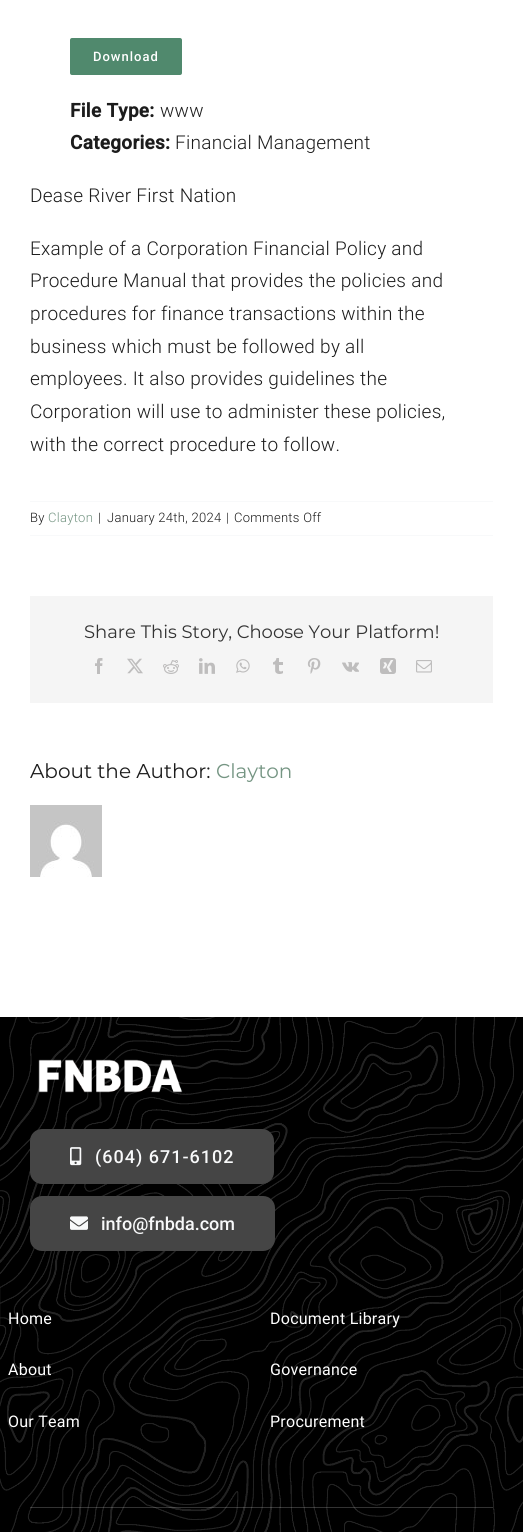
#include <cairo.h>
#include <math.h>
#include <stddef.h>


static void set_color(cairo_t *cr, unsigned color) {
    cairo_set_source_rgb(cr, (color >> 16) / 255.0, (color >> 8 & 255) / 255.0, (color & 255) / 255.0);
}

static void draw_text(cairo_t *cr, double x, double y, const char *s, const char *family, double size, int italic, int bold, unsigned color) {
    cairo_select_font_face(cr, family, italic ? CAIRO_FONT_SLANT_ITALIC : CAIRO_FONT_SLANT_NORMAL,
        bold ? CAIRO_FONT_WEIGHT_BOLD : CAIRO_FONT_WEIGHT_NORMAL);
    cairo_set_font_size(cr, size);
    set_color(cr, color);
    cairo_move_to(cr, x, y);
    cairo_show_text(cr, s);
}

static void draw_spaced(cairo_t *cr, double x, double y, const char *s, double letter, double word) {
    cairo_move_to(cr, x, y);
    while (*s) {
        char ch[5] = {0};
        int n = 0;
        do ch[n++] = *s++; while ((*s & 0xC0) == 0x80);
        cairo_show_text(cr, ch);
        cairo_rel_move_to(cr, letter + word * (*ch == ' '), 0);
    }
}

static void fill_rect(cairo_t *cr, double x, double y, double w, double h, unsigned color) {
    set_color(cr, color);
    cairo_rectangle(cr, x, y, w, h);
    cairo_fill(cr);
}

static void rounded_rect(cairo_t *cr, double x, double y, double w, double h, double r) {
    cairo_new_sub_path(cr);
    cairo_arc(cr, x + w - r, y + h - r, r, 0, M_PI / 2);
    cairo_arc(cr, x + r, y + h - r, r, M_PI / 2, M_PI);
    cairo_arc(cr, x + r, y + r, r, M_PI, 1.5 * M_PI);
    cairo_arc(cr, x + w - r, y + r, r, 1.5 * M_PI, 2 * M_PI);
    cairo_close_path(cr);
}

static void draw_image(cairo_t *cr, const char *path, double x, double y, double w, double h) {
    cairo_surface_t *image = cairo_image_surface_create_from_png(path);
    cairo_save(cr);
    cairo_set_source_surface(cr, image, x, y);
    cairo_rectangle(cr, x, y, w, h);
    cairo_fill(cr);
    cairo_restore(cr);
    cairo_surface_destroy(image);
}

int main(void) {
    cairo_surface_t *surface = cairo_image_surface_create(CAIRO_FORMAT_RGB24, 523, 1532);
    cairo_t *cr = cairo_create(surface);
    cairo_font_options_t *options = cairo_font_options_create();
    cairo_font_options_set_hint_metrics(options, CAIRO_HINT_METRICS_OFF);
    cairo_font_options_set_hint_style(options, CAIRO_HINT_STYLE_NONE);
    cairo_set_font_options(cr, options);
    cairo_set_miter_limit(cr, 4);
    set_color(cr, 0xFFFFFF);
    cairo_paint(cr);
    set_color(cr, 0x50896D);
    rounded_rect(cr, 70, 38, 112, 37, 2);
    cairo_fill(cr);
    cairo_select_font_face(cr, "Roboto Medium", CAIRO_FONT_SLANT_NORMAL, CAIRO_FONT_WEIGHT_NORMAL);
    cairo_set_font_size(cr, 13);
    set_color(cr, 0xFFFFFF);
    draw_spaced(cr, 93, 61, "Download", 1, 0);
    cairo_select_font_face(cr, "Roboto", CAIRO_FONT_SLANT_NORMAL, CAIRO_FONT_WEIGHT_BOLD);
    cairo_set_font_size(cr, 19);
    set_color(cr, 0x1C1C1C);
    draw_spaced(cr, 70, 117, "File Type:", 0.28, 0);
    cairo_select_font_face(cr, "Roboto Light", CAIRO_FONT_SLANT_NORMAL, CAIRO_FONT_WEIGHT_NORMAL);
    draw_spaced(cr, 160, 117, "www", 0.28, 0);
    cairo_select_font_face(cr, "Roboto", CAIRO_FONT_SLANT_NORMAL, CAIRO_FONT_WEIGHT_BOLD);
    draw_spaced(cr, 70, 149, "Categories:", 0.28, 0);
    cairo_select_font_face(cr, "Roboto Light", CAIRO_FONT_SLANT_NORMAL, CAIRO_FONT_WEIGHT_NORMAL);
    draw_spaced(cr, 175, 149, "Financial Management", 0.28, 0);
    draw_spaced(cr, 30, 202, "Dease River First Nation", 0.28, 0);
    draw_spaced(cr, 30, 255, "Example of a Corporation Financial Policy and", 0.28, 0);
    draw_spaced(cr, 30, 287, "Procedure Manual that provides the policies and", 0.28, 0);
    draw_spaced(cr, 30, 320, "procedures for finance transactions within the", 0.28, 0);
    draw_spaced(cr, 30, 353, "business which must be followed by all", 0.28, 0);
    draw_spaced(cr, 30, 385, "employees. It also provides guidelines the", 0.28, 0);
    draw_spaced(cr, 30, 418, "Corporation will use to administer these policies,", 0.28, 0);
    draw_spaced(cr, 30, 451, "with the correct procedure to follow.", 0.28, 0);
    fill_rect(cr, 30, 501, 463, 1, 0xF8F9FA);
    fill_rect(cr, 30, 535, 463, 1, 0xF8F9FA);
    cairo_set_font_size(cr, 13);
    set_color(cr, 0x1C1C1C);
    draw_spaced(cr, 30, 522, "By", 0.28, 0);
    set_color(cr, 0x759583);
    draw_spaced(cr, 48, 522, "Clayton", 0.28, 0);
    set_color(cr, 0x1C1C1C);
    draw_spaced(cr, 98, 522, "|", 0.28, 0);
    draw_spaced(cr, 107, 522, "January 24th, 2024", 0.28, 0);
    draw_spaced(cr, 226, 522, "|", 0.28, 0);
    draw_spaced(cr, 234, 522, "Comments Off", 0.28, 0);
    fill_rect(cr, 30, 596, 463, 107, 0xF5F5F5);
    draw_text(cr, 84, 638, "Share This Story, Choose Your Platform!", "Montserrat", 18, 0, 0, 0x333333);
    draw_image(cr, "assets/img1.png", 95, 658, 8, 16);
    draw_image(cr, "assets/img2.png", 127, 658, 16, 16);
    draw_image(cr, "assets/img3.png", 163, 660, 16, 14);
    draw_image(cr, "assets/img4.png", 199, 658, 16, 16);
    draw_image(cr, "assets/img5.png", 236, 659, 14, 14);
    draw_image(cr, "assets/img6.png", 273, 658, 10, 16);
    draw_image(cr, "assets/img7.png", 307, 658, 14, 16);
    draw_image(cr, "assets/img8.png", 342, 662, 17, 10);
    draw_image(cr, "assets/img9.png", 380, 658, 16, 16);
    draw_image(cr, "assets/img10.png", 416, 660, 16, 13);
    draw_text(cr, 30, 778, "About the Author:", "Montserrat", 20, 0, 0, 0x1C1C1C);
    draw_text(cr, 216, 778, "Clayton", "Montserrat", 20, 0, 0, 0x759583);
    draw_image(cr, "assets/img11.png", 30, 805, 72, 72);
    fill_rect(cr, 0, 1017, 523, 515, 0x000000);
    draw_image(cr, "assets/img12.png", 0, 1017, 523, 515);
    draw_image(cr, "assets/img13.png", 38, 1059, 145, 34);
    set_color(cr, 0x454545);
    rounded_rect(cr, 30, 1129, 244, 55, 12);
    cairo_fill(cr);
    draw_image(cr, "assets/img14.png", 70, 1147, 12, 19);
    cairo_select_font_face(cr, "Roboto Medium", CAIRO_FONT_SLANT_NORMAL, CAIRO_FONT_WEIGHT_NORMAL);
    cairo_set_font_size(cr, 18);
    set_color(cr, 0xF8F9FA);
    draw_spaced(cr, 95, 1163, "(604) 671-6102", 1, 0);
    set_color(cr, 0x454545);
    rounded_rect(cr, 30, 1196, 245, 55, 12);
    cairo_fill(cr);
    draw_image(cr, "assets/img15.png", 70, 1216, 18, 14);
    draw_text(cr, 101, 1230, "info@fnbda.com", "Roboto Medium", 18, 0, 0, 0xF8F9FA);
    cairo_select_font_face(cr, "Roboto", CAIRO_FONT_SLANT_NORMAL, CAIRO_FONT_WEIGHT_NORMAL);
    cairo_set_font_size(cr, 16);
    set_color(cr, 0xFFFFFF);
    draw_spaced(cr, 8, 1324, "Home", 0.25, 0);
    draw_spaced(cr, 8, 1375, "About", 0.25, 0);
    draw_spaced(cr, 8, 1427, "Our Team", 0.25, 0);
    draw_spaced(cr, 270, 1324, "Document Library", 0.25, 0);
    draw_spaced(cr, 270, 1375, "Governance", 0.25, 0);
    draw_spaced(cr, 270, 1427, "Procurement", 0.25, 0);
    cairo_set_source_rgba(cr, 1, 1, 1, 0.2);
    cairo_rectangle(cr, 30, 1507, 463, 1);
    cairo_fill(cr);
    cairo_surface_write_to_png(surface, "output.png");
    cairo_font_options_destroy(options);
    cairo_destroy(cr);
    cairo_surface_destroy(surface);
    return 0;
}
